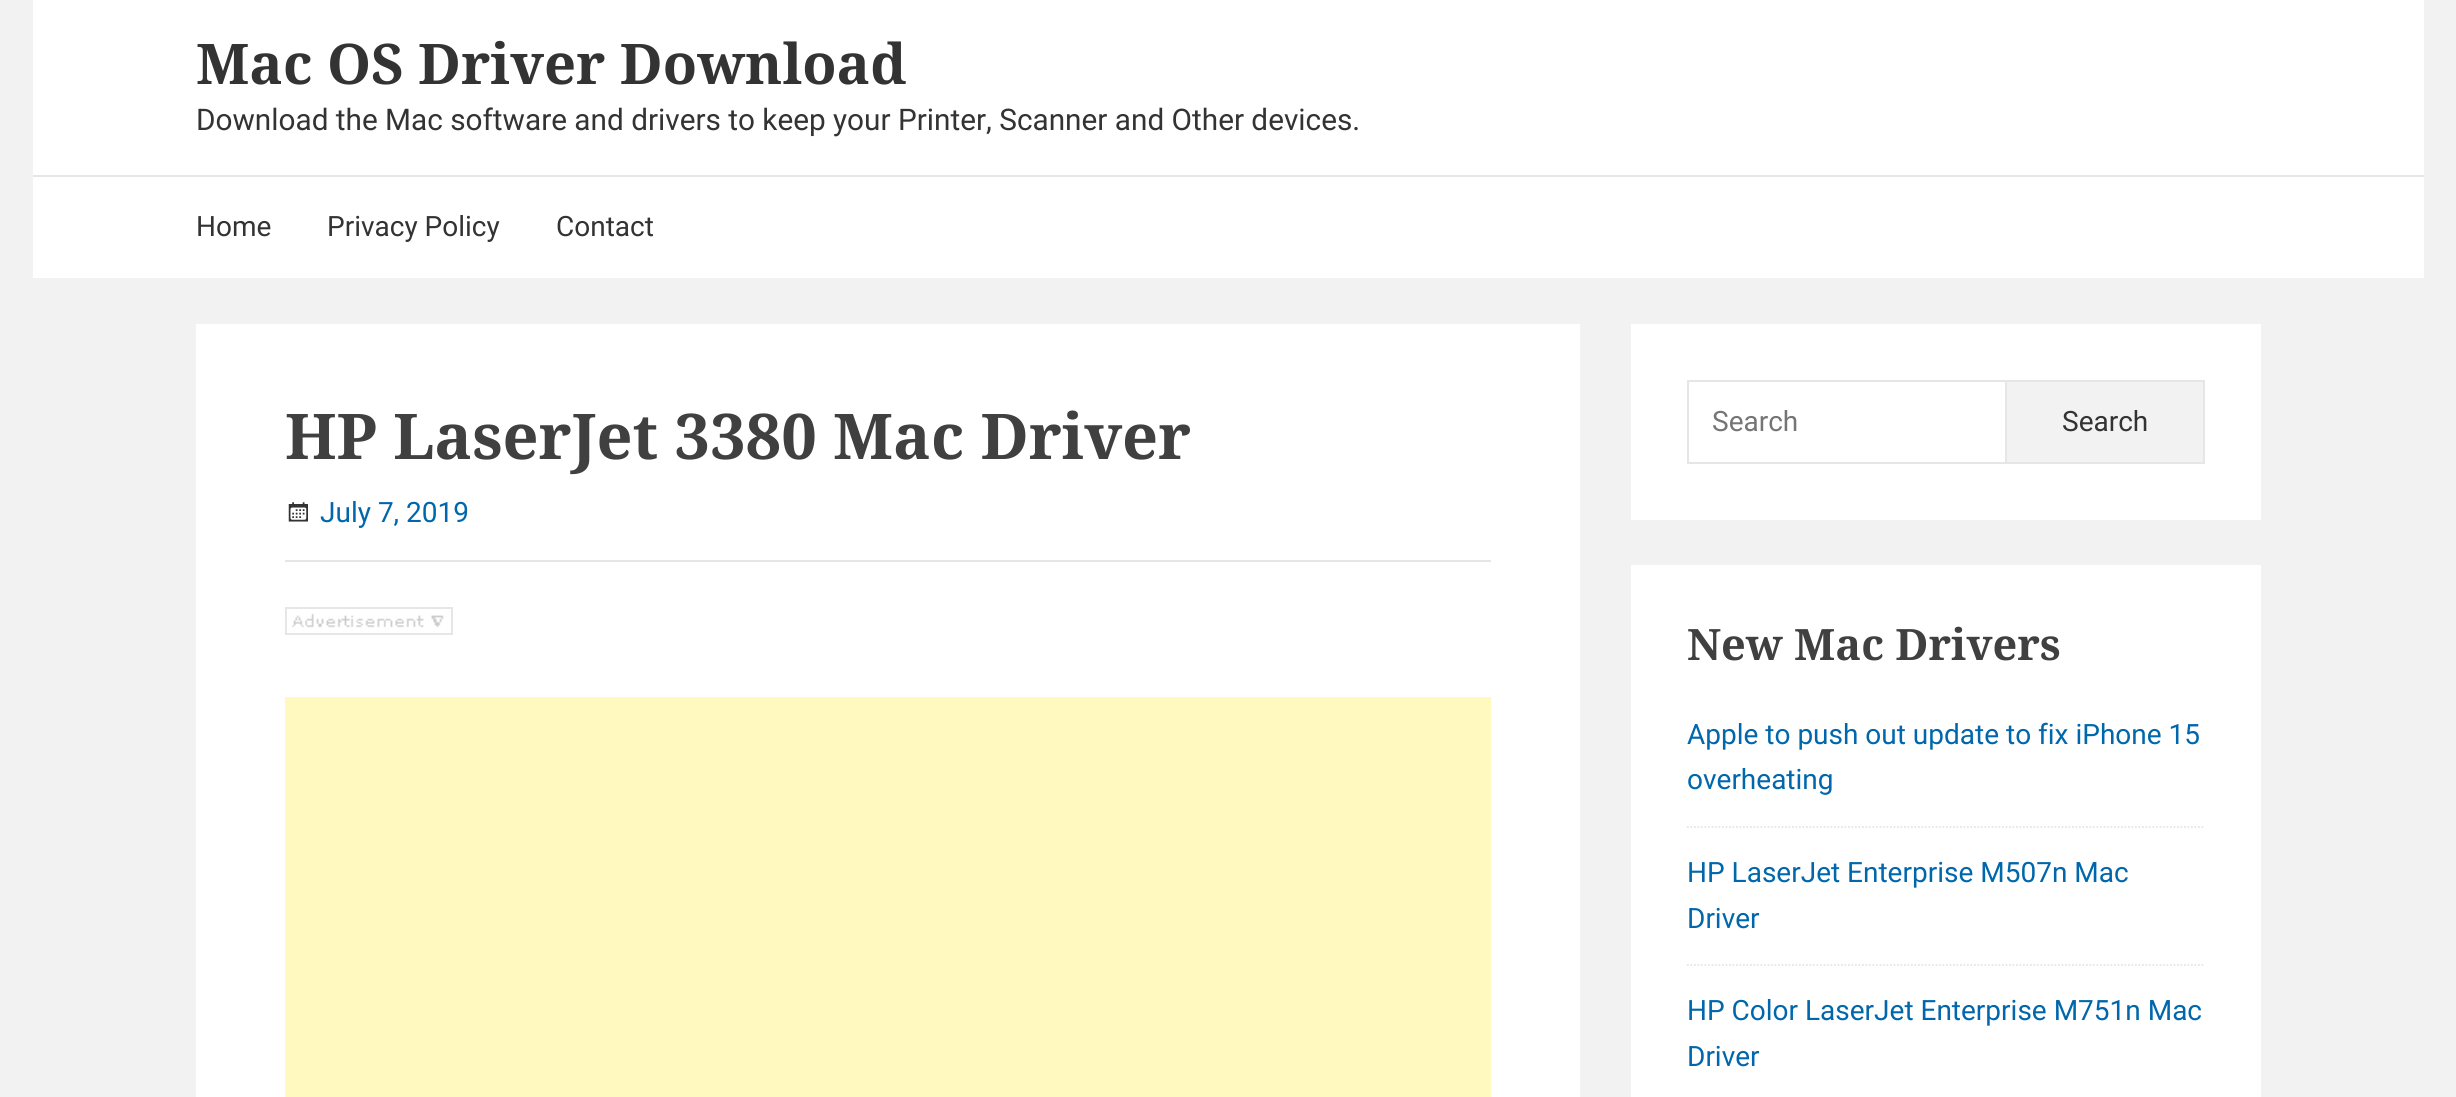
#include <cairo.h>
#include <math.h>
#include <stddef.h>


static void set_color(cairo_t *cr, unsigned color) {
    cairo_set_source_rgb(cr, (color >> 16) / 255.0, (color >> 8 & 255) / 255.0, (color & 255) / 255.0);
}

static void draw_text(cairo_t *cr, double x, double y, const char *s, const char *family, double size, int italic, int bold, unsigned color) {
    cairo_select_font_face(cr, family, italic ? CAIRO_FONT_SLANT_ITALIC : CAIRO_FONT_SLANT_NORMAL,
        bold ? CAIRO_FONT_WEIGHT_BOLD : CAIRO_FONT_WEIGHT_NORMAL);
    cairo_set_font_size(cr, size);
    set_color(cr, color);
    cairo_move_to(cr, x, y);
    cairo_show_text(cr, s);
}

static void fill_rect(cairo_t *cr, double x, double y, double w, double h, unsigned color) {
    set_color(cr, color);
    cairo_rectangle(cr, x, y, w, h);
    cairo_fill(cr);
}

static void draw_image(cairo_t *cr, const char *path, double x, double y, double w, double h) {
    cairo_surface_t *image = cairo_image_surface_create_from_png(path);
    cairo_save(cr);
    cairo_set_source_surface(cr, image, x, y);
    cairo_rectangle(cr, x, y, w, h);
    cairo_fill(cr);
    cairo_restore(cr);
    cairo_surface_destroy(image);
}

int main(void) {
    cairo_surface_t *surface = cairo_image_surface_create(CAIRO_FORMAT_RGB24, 2456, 1097);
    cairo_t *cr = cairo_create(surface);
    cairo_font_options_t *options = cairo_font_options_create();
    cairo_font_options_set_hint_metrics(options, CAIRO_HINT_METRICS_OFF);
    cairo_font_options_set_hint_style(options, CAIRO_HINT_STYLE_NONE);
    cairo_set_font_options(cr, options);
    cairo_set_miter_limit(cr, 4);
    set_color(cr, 0xF2F2F2);
    cairo_paint(cr);
    fill_rect(cr, 33, 0, 2391, 278, 0xFFFFFF);
    draw_text(cr, 196, 84, "Mac OS Driver Download", "Noto Serif", 56, 0, 1, 0x333333);
    draw_text(cr, 196, 130, "Download the Mac software and drivers to keep your Printer, Scanner and Other devices.", "Roboto", 29.75, 0, 0, 0x333333);
    fill_rect(cr, 33, 175, 2391, 2, 0xE6E6E6);
    draw_text(cr, 196, 236, "Home", "Roboto", 28, 0, 0, 0x333333);
    draw_text(cr, 327, 236, "Privacy Policy", "Roboto", 28, 0, 0, 0x333333);
    draw_text(cr, 556, 236, "Contact", "Roboto", 28, 0, 0, 0x333333);
    fill_rect(cr, 196, 324, 1384, 773, 0xFFFFFF);
    fill_rect(cr, 285, 560, 1206, 2, 0xE6E6E6);
    draw_text(cr, 285, 459, "HP LaserJet 3380 Mac Driver", "Noto Serif", 63, 0, 1, 0x404040);
    draw_image(cr, "assets/img1.png", 288, 502, 20, 20);
    draw_text(cr, 320, 522, "July 7, 2019", "Roboto", 28, 0, 0, 0x0067AC);
    cairo_rectangle(cr, 286, 608, 166, 26);
    set_color(cr, 0xE6E6E6);
    cairo_stroke(cr);
    draw_image(cr, "assets/img2.png", 292, 613, 152, 15);
    fill_rect(cr, 285, 697, 1206, 400, 0xFFF9C0);
    fill_rect(cr, 1631, 324, 630, 196, 0xFFFFFF);
    cairo_rectangle(cr, 1688, 381, 318, 82);
    set_color(cr, 0xE6E6E6);
    cairo_stroke(cr);
    draw_text(cr, 1712, 431, "Search", "Roboto", 28, 0, 0, 0x757575);
    fill_rect(cr, 2007, 382, 196, 80, 0xF2F2F2);
    fill_rect(cr, 2007, 380, 198, 2, 0xE6E6E6);
    fill_rect(cr, 2203, 380, 2, 84, 0xE6E6E6);
    fill_rect(cr, 2007, 462, 198, 2, 0xE6E6E6);
    draw_text(cr, 2062, 431, "Search", "Roboto", 28, 0, 0, 0x333333);
    fill_rect(cr, 1631, 565, 630, 532, 0xFFFFFF);
    draw_text(cr, 1687, 660, "New Mac Drivers", "Noto Serif", 43.25, 0, 1, 0x404040);
    draw_text(cr, 1687, 744, "Apple to push out update to fix iPhone 15", "Roboto", 28, 0, 0, 0x0067AC);
    draw_text(cr, 1687, 789, "overheating", "Roboto", 28, 0, 0, 0x0067AC);
    cairo_new_path(cr);
    cairo_move_to(cr, 1687, 827);
    cairo_line_to(cr, 2205, 827);
    set_color(cr, 0xE6E6E6);
    cairo_set_line_width(cr, 1.8);
    cairo_set_dash(cr, (double[]){1.75, 1.75}, 2, 0);
    cairo_stroke(cr);
    draw_text(cr, 1687, 882, "HP LaserJet Enterprise M507n Mac", "Roboto", 28, 0, 0, 0x0067AC);
    draw_text(cr, 1687, 928, "Driver", "Roboto", 28, 0, 0, 0x0067AC);
    cairo_new_path(cr);
    cairo_move_to(cr, 1687, 965);
    cairo_line_to(cr, 2205, 965);
    set_color(cr, 0xE6E6E6);
    cairo_stroke(cr);
    draw_text(cr, 1687, 1020, "HP Color LaserJet Enterprise M751n Mac", "Roboto", 28, 0, 0, 0x0067AC);
    draw_text(cr, 1687, 1066, "Driver", "Roboto", 28, 0, 0, 0x0067AC);
    cairo_surface_write_to_png(surface, "output.png");
    cairo_font_options_destroy(options);
    cairo_destroy(cr);
    cairo_surface_destroy(surface);
    return 0;
}
